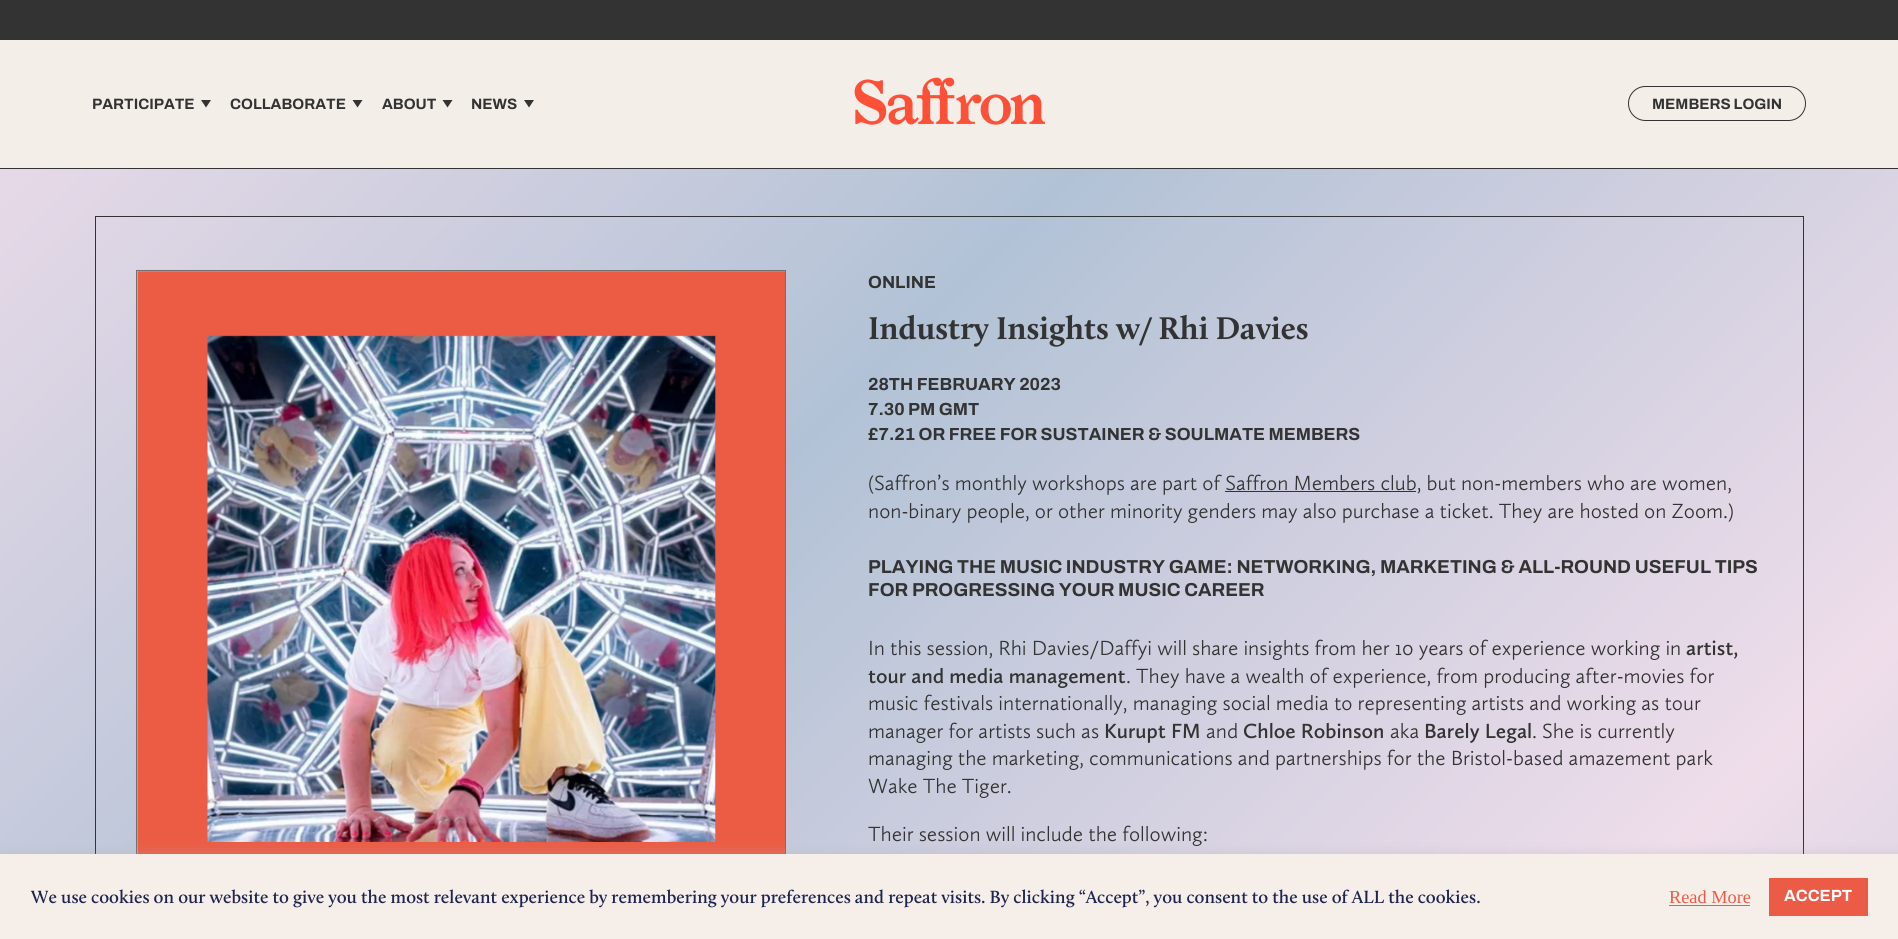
#include <cairo.h>
#include <math.h>
#include <stddef.h>


static void set_color(cairo_t *cr, unsigned color) {
    cairo_set_source_rgb(cr, (color >> 16) / 255.0, (color >> 8 & 255) / 255.0, (color & 255) / 255.0);
}

static void draw_text(cairo_t *cr, double x, double y, const char *s, const char *family, double size, int italic, int bold, unsigned color) {
    cairo_select_font_face(cr, family, italic ? CAIRO_FONT_SLANT_ITALIC : CAIRO_FONT_SLANT_NORMAL,
        bold ? CAIRO_FONT_WEIGHT_BOLD : CAIRO_FONT_WEIGHT_NORMAL);
    cairo_set_font_size(cr, size);
    set_color(cr, color);
    cairo_move_to(cr, x, y);
    cairo_show_text(cr, s);
}

static void fill_rect(cairo_t *cr, double x, double y, double w, double h, unsigned color) {
    set_color(cr, color);
    cairo_rectangle(cr, x, y, w, h);
    cairo_fill(cr);
}

static void rounded_rect(cairo_t *cr, double x, double y, double w, double h, double r) {
    cairo_new_sub_path(cr);
    cairo_arc(cr, x + w - r, y + h - r, r, 0, M_PI / 2);
    cairo_arc(cr, x + r, y + h - r, r, M_PI / 2, M_PI);
    cairo_arc(cr, x + r, y + r, r, M_PI, 1.5 * M_PI);
    cairo_arc(cr, x + w - r, y + r, r, 1.5 * M_PI, 2 * M_PI);
    cairo_close_path(cr);
}

static void draw_shadow(cairo_t *cr, double x, double y, double w, double h, double r, double blur, double alpha) {
    cairo_push_group_with_content(cr, CAIRO_CONTENT_ALPHA);
    cairo_set_operator(cr, CAIRO_OPERATOR_SOURCE);
    for (int i = 15; i >= -15 && fmin(w, h) + blur * i / 3 > 0; i -= 2) {
        double e = blur * i / 6;
        cairo_set_source_rgba(cr, 0, 0, 0, alpha * erfc((i - 1) / 8.5) / 2);
        rounded_rect(cr, x - e, y - e, w + 2 * e, h + 2 * e, fmax(0, fmin(r + e + blur * .6, fmin(w, h) / 2 + e)));
        cairo_fill(cr);
    }
    cairo_pattern_t *soft = cairo_pop_group(cr);
    cairo_mask(cr, soft);
    cairo_pattern_destroy(soft);
}

static void draw_image(cairo_t *cr, const char *path, double x, double y, double w, double h) {
    cairo_surface_t *image = cairo_image_surface_create_from_png(path);
    cairo_save(cr);
    cairo_set_source_surface(cr, image, x, y);
    cairo_rectangle(cr, x, y, w, h);
    cairo_fill(cr);
    cairo_restore(cr);
    cairo_surface_destroy(image);
}

int main(void) {
    cairo_surface_t *surface = cairo_image_surface_create(CAIRO_FORMAT_RGB24, 1898, 939);
    cairo_t *cr = cairo_create(surface);
    cairo_font_options_t *options = cairo_font_options_create();
    cairo_font_options_set_hint_metrics(options, CAIRO_HINT_METRICS_OFF);
    cairo_font_options_set_hint_style(options, CAIRO_HINT_STYLE_NONE);
    cairo_set_font_options(cr, options);
    cairo_set_miter_limit(cr, 4);
    cairo_pattern_t *gradient;
    set_color(cr, 0xFFFFFF);
    cairo_paint(cr);
    gradient = cairo_pattern_create_linear(1893, 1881, 5.9, -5.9);
    cairo_pattern_add_color_stop_rgba(gradient, 0, 0.698, 0.761, 0.839, 1);
    cairo_pattern_add_color_stop_rgba(gradient, 0.33, 0.937, 0.867, 0.918, 1);
    cairo_pattern_add_color_stop_rgba(gradient, 0.67, 0.698, 0.761, 0.839, 1);
    cairo_pattern_add_color_stop_rgba(gradient, 1, 0.937, 0.867, 0.918, 1);
    cairo_set_source(cr, gradient);
    cairo_pattern_destroy(gradient);
    cairo_rectangle(cr, 0, 169, 1898, 685);
    cairo_fill(cr);
    fill_rect(cr, 0, 0, 1898, 40, 0x333333);
    fill_rect(cr, 0, 40, 1898, 128, 0xF3EEE8);
    fill_rect(cr, 0, 168, 1898, 1, 0x333333);
    draw_text(cr, 92, 109, "PARTICIPATE", "Archivo SemiBold", 15, 0, 0, 0x333333);
    cairo_new_path(cr);
    cairo_move_to(cr, 201, 100);
    cairo_line_to(cr, 211, 100);
    cairo_line_to(cr, 206, 107.5);
    cairo_close_path(cr);
    cairo_fill(cr);
    draw_text(cr, 230, 109, "COLLABORATE", "Archivo SemiBold", 15, 0, 0, 0x333333);
    cairo_new_path(cr);
    cairo_move_to(cr, 352.5, 100);
    cairo_line_to(cr, 362.5, 100);
    cairo_line_to(cr, 357.5, 107.5);
    cairo_close_path(cr);
    cairo_fill(cr);
    draw_text(cr, 382, 109, "ABOUT", "Archivo SemiBold", 15, 0, 0, 0x333333);
    cairo_new_path(cr);
    cairo_move_to(cr, 442.5, 100);
    cairo_line_to(cr, 452.5, 100);
    cairo_line_to(cr, 447.5, 107.5);
    cairo_close_path(cr);
    cairo_fill(cr);
    draw_text(cr, 471, 109, "NEWS", "Archivo SemiBold", 15, 0, 0, 0x333333);
    cairo_new_path(cr);
    cairo_move_to(cr, 524, 100);
    cairo_line_to(cr, 534, 100);
    cairo_line_to(cr, 529, 107.5);
    cairo_close_path(cr);
    cairo_fill(cr);
    draw_image(cr, "assets/img1.png", 854, 77, 191, 48);
    rounded_rect(cr, 1628.5, 86.5, 177, 34, 17);
    cairo_set_line_width(cr, 1);
    cairo_stroke(cr);
    draw_text(cr, 1652, 109, "MEMBERS LOGIN", "Archivo SemiBold", 15, 0, 0, 0x333333);
    cairo_rectangle(cr, 95.5, 216.5, 1708, 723);
    cairo_stroke(cr);
    cairo_rectangle(cr, 136.5, 270.5, 649, 649);
    set_color(cr, 0x707070);
    cairo_stroke(cr);
    draw_image(cr, "assets/img2.png", 137, 271, 648, 583);
    draw_text(cr, 868, 288, "ONLINE", "Archivo SemiBold", 17.5, 0, 0, 0x333333);
    draw_text(cr, 868, 339, "Industry Insights w/ Rhi Davies", "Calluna", 32.5, 0, 1, 0x333333);
    draw_text(cr, 868, 390, "28TH FEBRUARY 2023", "Archivo SemiBold", 17.5, 0, 0, 0x333333);
    draw_text(cr, 868, 415, "7.30 PM GMT", "Archivo SemiBold", 17.5, 0, 0, 0x333333);
    draw_text(cr, 868, 440, "£7.21 OR FREE FOR SUSTAINER & SOULMATE MEMBERS", "Archivo SemiBold", 17.5, 0, 0, 0x333333);
    draw_text(cr, 868, 490, "(Saffron’s monthly workshops are part of Saffron Members club, but non-members who are women,", "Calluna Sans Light", 21.25, 0, 0, 0x333333);
    fill_rect(cr, 1225, 491, 191, 1, 0x333333);
    draw_text(cr, 868, 518, "non-binary people, or other minority genders may also purchase a ticket. They are hosted on Zoom.)", "Calluna Sans Light", 21.25, 0, 0, 0x333333);
    draw_text(cr, 868, 573, "PLAYING THE MUSIC INDUSTRY GAME: NETWORKING, MARKETING & ALL-ROUND USEFUL TIPS", "Archivo SemiBold", 18.75, 0, 0, 0x333333);
    draw_text(cr, 868, 596, "FOR PROGRESSING YOUR MUSIC CAREER", "Archivo SemiBold", 18.75, 0, 0, 0x333333);
    draw_text(cr, 868, 655, "In this session, Rhi Davies/Daffyi will share insights from her 10 years of experience working in", "Calluna Sans Light", 21.25, 0, 0, 0x333333);
    draw_text(cr, 1686, 655, "artist,", "Calluna Sans SemiBold", 21.25, 0, 0, 0x333333);
    draw_text(cr, 868, 683, "tour and media management", "Calluna Sans SemiBold", 21.25, 0, 0, 0x333333);
    draw_text(cr, 1126, 683, ". They have a wealth of experience, from producing after-movies for", "Calluna Sans Light", 21.25, 0, 0, 0x333333);
    draw_text(cr, 868, 710, "music festivals internationally, managing social media to representing artists and working as tour", "Calluna Sans Light", 21.25, 0, 0, 0x333333);
    draw_text(cr, 868, 738, "manager for artists such as", "Calluna Sans Light", 21.25, 0, 0, 0x333333);
    draw_text(cr, 1104, 738, "Kurupt FM", "Calluna Sans SemiBold", 21.25, 0, 0, 0x333333);
    draw_text(cr, 1206, 738, "and", "Calluna Sans Light", 21.25, 0, 0, 0x333333);
    draw_text(cr, 1243, 738, "Chloe Robinson", "Calluna Sans SemiBold", 21.25, 0, 0, 0x333333);
    draw_text(cr, 1390, 738, "aka", "Calluna Sans Light", 21.25, 0, 0, 0x333333);
    draw_text(cr, 1424, 738, "Barely Legal", "Calluna Sans SemiBold", 21.25, 0, 0, 0x333333);
    draw_text(cr, 1532, 738, ". She is currently", "Calluna Sans Light", 21.25, 0, 0, 0x333333);
    draw_text(cr, 868, 765, "managing the marketing, communications and partnerships for the Bristol-based amazement park", "Calluna Sans Light", 21.25, 0, 0, 0x333333);
    draw_text(cr, 868, 793, "Wake The Tiger.", "Calluna Sans Light", 21.25, 0, 0, 0x333333);
    draw_text(cr, 868, 841, "Their session will include the following:", "Calluna Sans Light", 21.25, 0, 0, 0x333333);
    set_color(cr, 0xACABAB);
    draw_shadow(cr, 0, 853, 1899, 86, 0, 6, 0.3);
    fill_rect(cr, 0, 854, 1898, 85, 0xF6EEE8);
    draw_text(cr, 31, 903, "We use cookies on our website to give you the most relevant experience by remembering your preferences and repeat visits. By clicking “Accept”, you consent to the use of ALL the cookies.", "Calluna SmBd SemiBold", 18.33, 0, 0, 0x1D2450);
    draw_text(cr, 1669, 903, "Read More", "Liberation Serif", 18.33, 0, 0, 0xEC5B46);
    fill_rect(cr, 1669, 905, 81, 1, 0xEC5B46);
    fill_rect(cr, 1769, 878, 99, 38, 0xEC5B46);
    draw_text(cr, 1784, 901, "ACCEPT", "Archivo SemiBold", 16.25, 0, 0, 0xFFFFFF);
    cairo_surface_write_to_png(surface, "output.png");
    cairo_font_options_destroy(options);
    cairo_destroy(cr);
    cairo_surface_destroy(surface);
    return 0;
}
